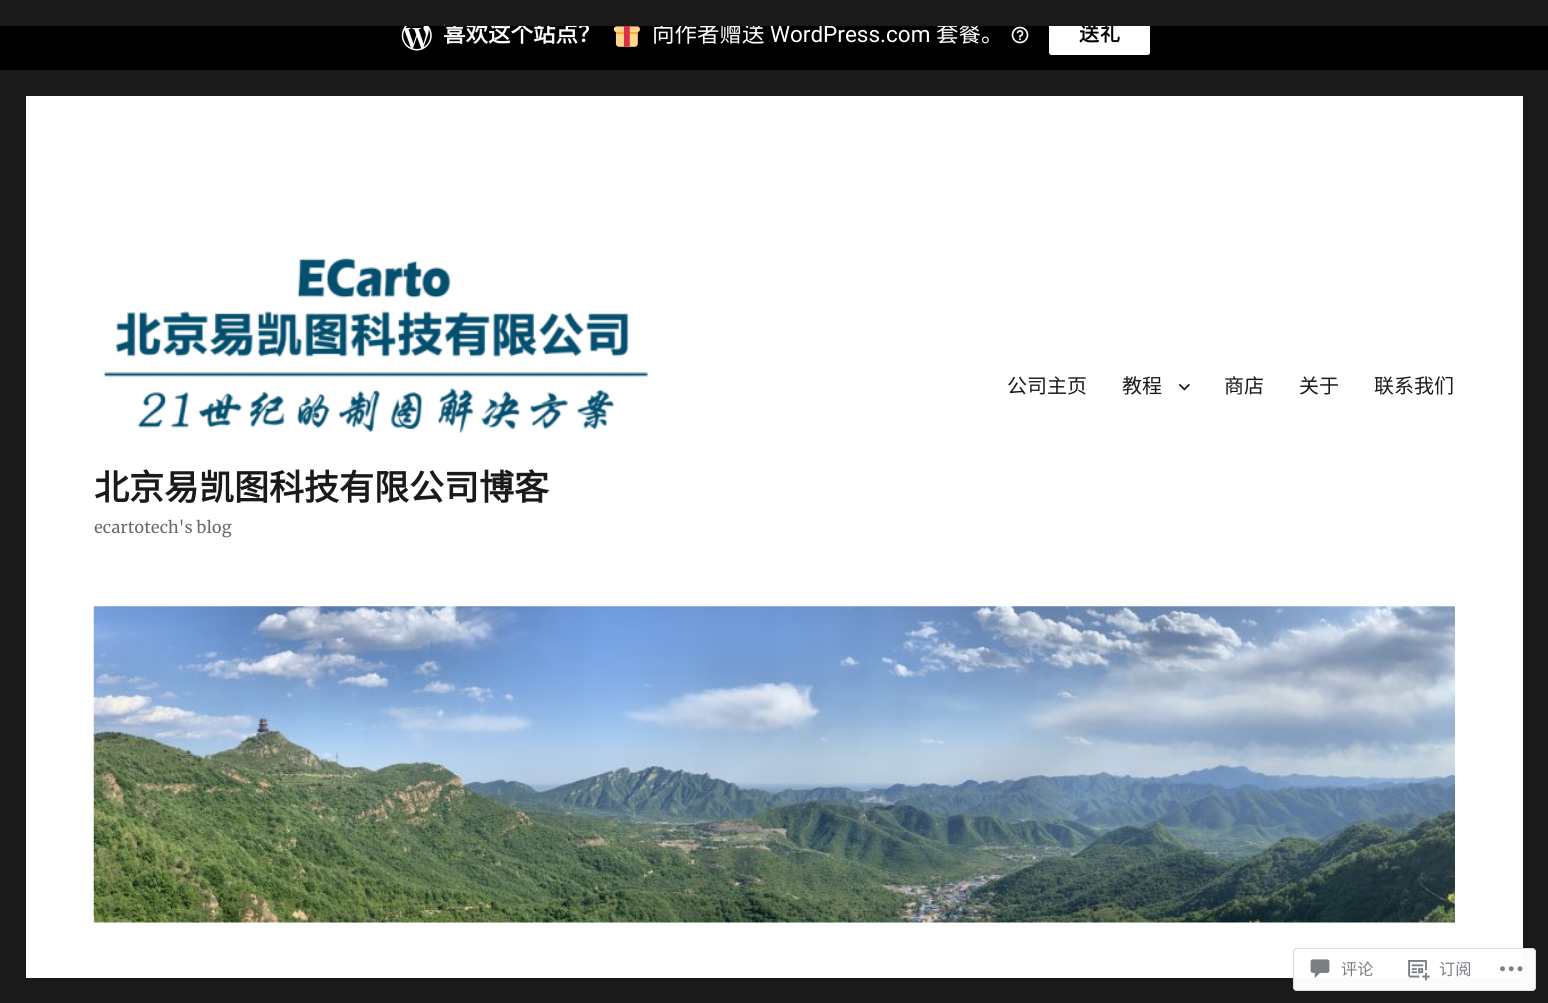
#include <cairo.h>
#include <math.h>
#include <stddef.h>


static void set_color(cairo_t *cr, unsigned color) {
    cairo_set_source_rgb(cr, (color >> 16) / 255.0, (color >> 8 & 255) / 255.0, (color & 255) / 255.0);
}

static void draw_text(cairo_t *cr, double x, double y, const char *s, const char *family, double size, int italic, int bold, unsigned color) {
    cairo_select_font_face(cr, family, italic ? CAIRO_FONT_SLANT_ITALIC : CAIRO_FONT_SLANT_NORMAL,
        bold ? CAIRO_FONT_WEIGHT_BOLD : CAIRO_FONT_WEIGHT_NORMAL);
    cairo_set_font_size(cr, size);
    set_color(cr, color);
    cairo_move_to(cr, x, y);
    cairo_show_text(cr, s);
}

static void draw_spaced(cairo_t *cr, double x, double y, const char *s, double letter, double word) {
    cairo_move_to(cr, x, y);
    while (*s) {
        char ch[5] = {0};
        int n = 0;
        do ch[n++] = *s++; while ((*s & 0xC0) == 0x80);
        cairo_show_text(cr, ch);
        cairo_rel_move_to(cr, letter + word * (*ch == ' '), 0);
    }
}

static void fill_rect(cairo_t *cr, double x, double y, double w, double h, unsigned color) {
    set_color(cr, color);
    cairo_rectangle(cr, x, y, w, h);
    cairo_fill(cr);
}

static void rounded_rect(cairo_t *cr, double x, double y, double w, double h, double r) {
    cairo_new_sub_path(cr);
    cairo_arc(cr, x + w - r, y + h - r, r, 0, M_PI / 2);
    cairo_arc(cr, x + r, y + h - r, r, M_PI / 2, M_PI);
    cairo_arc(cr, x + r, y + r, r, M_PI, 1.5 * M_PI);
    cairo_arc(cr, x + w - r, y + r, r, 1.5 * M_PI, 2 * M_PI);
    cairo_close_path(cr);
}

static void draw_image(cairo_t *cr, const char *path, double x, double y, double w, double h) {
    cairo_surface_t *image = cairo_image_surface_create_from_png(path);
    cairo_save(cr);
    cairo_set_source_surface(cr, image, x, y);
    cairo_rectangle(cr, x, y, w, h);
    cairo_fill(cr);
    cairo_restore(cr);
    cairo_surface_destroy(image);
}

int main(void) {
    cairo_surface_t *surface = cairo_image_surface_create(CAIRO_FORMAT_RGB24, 1548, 1003);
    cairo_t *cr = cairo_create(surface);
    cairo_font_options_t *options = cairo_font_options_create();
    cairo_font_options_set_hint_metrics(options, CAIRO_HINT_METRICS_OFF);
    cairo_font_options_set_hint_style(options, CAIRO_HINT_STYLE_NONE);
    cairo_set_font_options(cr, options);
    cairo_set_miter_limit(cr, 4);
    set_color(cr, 0x1A1A1A);
    cairo_paint(cr);
    fill_rect(cr, 0, 26, 1548, 44, 0x000000);
    draw_text(cr, 443, 42, "喜欢这个站点？", "Noto Sans CJK SC", 22.5, 0, 1, 0xFFFFFF);
    draw_text(cr, 652, 42, "向作者赠送", "Noto Sans CJK SC", 22.5, 0, 0, 0xFFFFFF);
    draw_text(cr, 770, 42, "WordPress.com", "Roboto", 22.5, 0, 0, 0xFFFFFF);
    draw_text(cr, 936, 42, "套餐。", "Noto Sans CJK SC", 22.5, 0, 0, 0xFFFFFF);
    rounded_rect(cr, 1049, 15, 101, 40, 2.5);
    cairo_fill(cr);
    cairo_select_font_face(cr, "Noto Sans CJK SC", CAIRO_FONT_SLANT_NORMAL, CAIRO_FONT_WEIGHT_BOLD);
    cairo_set_font_size(cr, 20);
    set_color(cr, 0x000000);
    draw_spaced(cr, 1079, 41, "送礼", 1, 0);
    fill_rect(cr, 445, 15, 705, 11, 0x1A1A1A);
    draw_image(cr, "assets/img1.png", 401, 26, 31, 25);
    draw_image(cr, "assets/img2.png", 614, 26, 26, 21);
    draw_image(cr, "assets/img3.png", 1011, 26, 18, 18);
    fill_rect(cr, 26, 96, 1497, 882, 0xFFFFFF);
    draw_text(cr, 1007, 393, "公司主页", "Noto Sans CJK SC", 20, 0, 0, 0x1A1A1A);
    draw_text(cr, 1122, 393, "教程", "Noto Sans CJK SC", 20, 0, 0, 0x1A1A1A);
    draw_image(cr, "assets/img4.png", 1178, 383, 12, 8);
    draw_text(cr, 1224, 393, "商店", "Noto Sans CJK SC", 20, 0, 0, 0x1A1A1A);
    draw_text(cr, 1299, 393, "关于", "Noto Sans CJK SC", 20, 0, 0, 0x1A1A1A);
    draw_text(cr, 1374, 393, "联系我们", "Noto Sans CJK SC", 20, 0, 0, 0x1A1A1A);
    draw_image(cr, "assets/img5.png", 103, 258, 545, 176);
    draw_text(cr, 94, 500, "北京易凯图科技有限公司博客", "Noto Sans CJK SC", 35, 0, 1, 0x1A1A1A);
    draw_text(cr, 94, 533, "ecartotech's blog", "Merriweather", 16.25, 0, 0, 0x686868);
    draw_image(cr, "assets/img6.png", 93, 606, 1362, 317);
    cairo_set_source_rgba(cr, 1, 1, 1, 0.98);
    rounded_rect(cr, 1293, 948, 243, 43, 4);
    cairo_fill(cr);
    rounded_rect(cr, 1293.5, 948.5, 242, 42, 3.5);
    cairo_set_source_rgba(cr, 0.863, 0.863, 0.871, 0.98);
    cairo_set_line_width(cr, 1);
    cairo_stroke(cr);
    draw_image(cr, "assets/img7.png", 1310, 959, 20, 19);
    draw_text(cr, 1341, 975, "评论", "Noto Sans CJK SC", 16.25, 0, 0, 0x7B7F85);
    draw_image(cr, "assets/img8.png", 1408, 960, 22, 21);
    draw_text(cr, 1439, 975, "订阅", "Noto Sans CJK SC", 16.25, 0, 0, 0x7B7F85);
    draw_image(cr, "assets/img9.png", 1500, 966, 23, 6);
    cairo_surface_write_to_png(surface, "output.png");
    cairo_font_options_destroy(options);
    cairo_destroy(cr);
    cairo_surface_destroy(surface);
    return 0;
}
